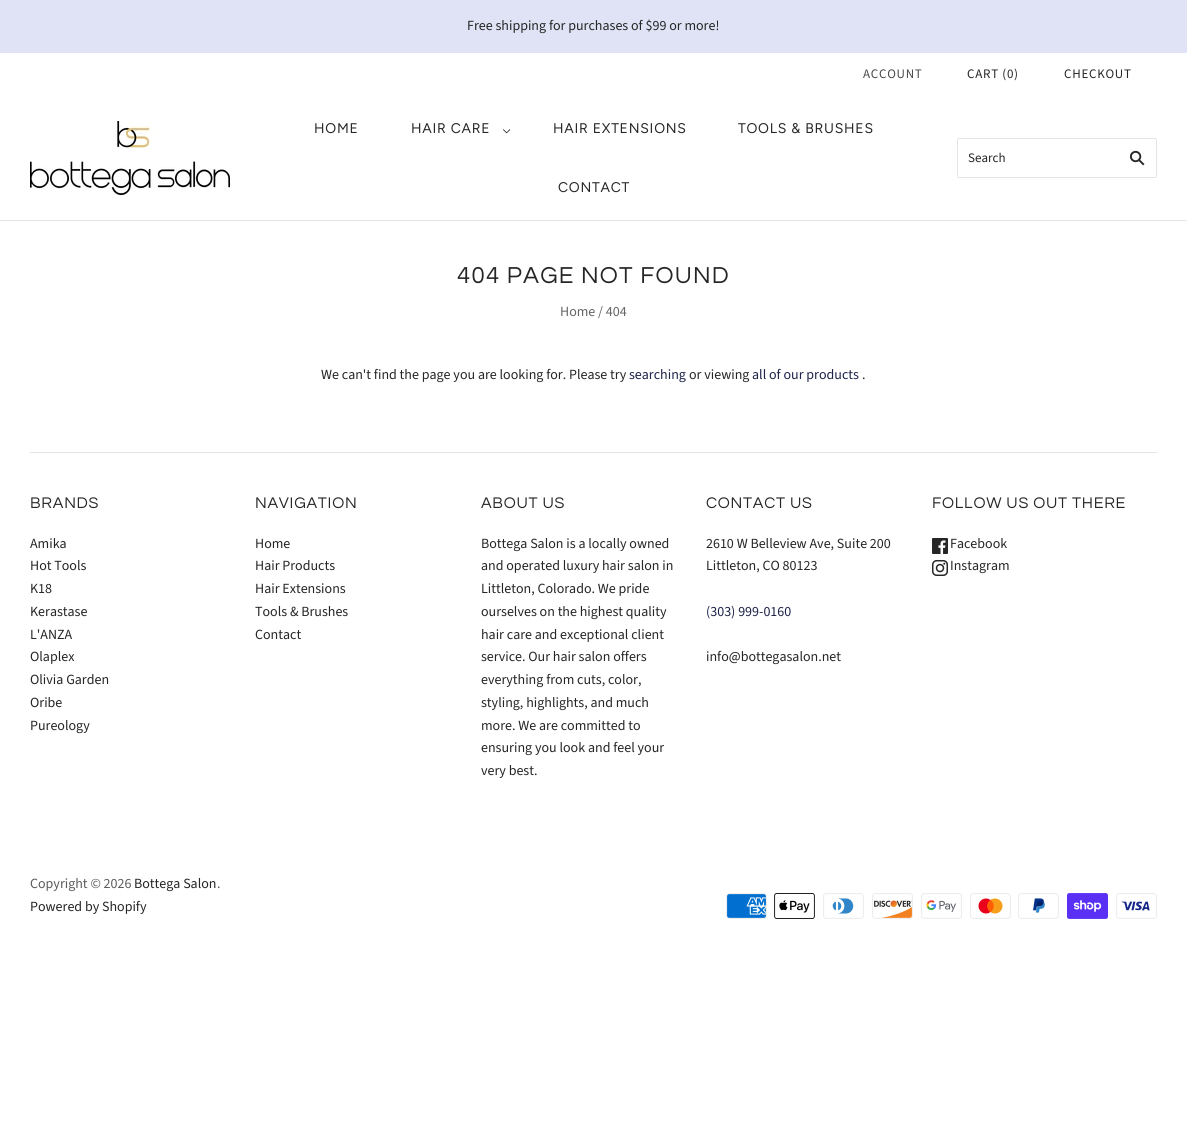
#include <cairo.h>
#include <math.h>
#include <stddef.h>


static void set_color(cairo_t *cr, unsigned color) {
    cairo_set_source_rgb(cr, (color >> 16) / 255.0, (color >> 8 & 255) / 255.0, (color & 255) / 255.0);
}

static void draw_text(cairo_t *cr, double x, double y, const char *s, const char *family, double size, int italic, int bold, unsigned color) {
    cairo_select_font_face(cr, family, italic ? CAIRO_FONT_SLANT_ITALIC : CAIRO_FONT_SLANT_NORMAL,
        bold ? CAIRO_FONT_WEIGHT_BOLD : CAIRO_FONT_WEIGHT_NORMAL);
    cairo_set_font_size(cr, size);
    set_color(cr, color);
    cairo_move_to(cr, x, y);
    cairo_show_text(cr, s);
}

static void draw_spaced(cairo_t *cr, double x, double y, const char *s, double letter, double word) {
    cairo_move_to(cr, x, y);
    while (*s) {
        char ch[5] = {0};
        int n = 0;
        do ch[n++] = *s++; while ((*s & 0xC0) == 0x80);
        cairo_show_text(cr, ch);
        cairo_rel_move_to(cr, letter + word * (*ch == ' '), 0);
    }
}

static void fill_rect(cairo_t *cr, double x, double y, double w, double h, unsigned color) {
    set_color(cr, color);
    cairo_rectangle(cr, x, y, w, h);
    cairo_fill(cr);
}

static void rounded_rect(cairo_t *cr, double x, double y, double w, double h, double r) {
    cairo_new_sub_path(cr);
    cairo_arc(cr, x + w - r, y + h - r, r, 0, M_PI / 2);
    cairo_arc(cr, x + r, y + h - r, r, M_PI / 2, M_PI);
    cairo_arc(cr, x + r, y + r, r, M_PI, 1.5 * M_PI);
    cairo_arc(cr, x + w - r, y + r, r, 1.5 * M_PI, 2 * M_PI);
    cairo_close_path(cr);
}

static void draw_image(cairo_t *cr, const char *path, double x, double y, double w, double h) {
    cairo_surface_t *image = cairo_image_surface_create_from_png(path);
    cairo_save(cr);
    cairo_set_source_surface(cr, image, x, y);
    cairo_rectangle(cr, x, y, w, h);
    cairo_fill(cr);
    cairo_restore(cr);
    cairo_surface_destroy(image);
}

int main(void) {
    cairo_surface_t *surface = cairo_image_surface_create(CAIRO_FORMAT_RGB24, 1187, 1147);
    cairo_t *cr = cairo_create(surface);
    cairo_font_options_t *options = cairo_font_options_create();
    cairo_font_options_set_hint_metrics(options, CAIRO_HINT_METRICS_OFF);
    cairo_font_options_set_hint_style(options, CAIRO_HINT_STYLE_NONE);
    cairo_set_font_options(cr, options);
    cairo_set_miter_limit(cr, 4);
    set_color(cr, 0xFFFFFF);
    cairo_paint(cr);
    fill_rect(cr, 0, 0, 1187, 53, 0xE0E3F5);
    draw_text(cr, 467, 30, "Free shipping for purchases of $99 or more!", "Source Sans Pro", 14, 0, 0, 0x262626);
    fill_rect(cr, 0, 220, 1187, 1, 0xE4E4E4);
    cairo_set_font_size(cr, 13);
    set_color(cr, 0x494949);
    draw_spaced(cr, 863, 78, "ACCOUNT", 0.75, 0);
    set_color(cr, 0x262626);
    draw_spaced(cr, 967, 78, "CART (0)", 0.75, 0);
    draw_spaced(cr, 1064, 78, "CHECKOUT", 0.75, 0);
    draw_image(cr, "assets/img1.png", 30, 121, 200, 74);
    cairo_select_font_face(cr, "Figtree", CAIRO_FONT_SLANT_NORMAL, CAIRO_FONT_WEIGHT_NORMAL);
    cairo_set_font_size(cr, 14);
    draw_spaced(cr, 314, 133, "HOME", 0.75, 0);
    draw_spaced(cr, 411, 133, "HAIR CARE", 0.75, 0);
    draw_image(cr, "assets/img2.png", 503, 129, 8, 5);
    draw_spaced(cr, 553, 133, "HAIR EXTENSIONS", 0.75, 0);
    draw_spaced(cr, 738, 133, "TOOLS & BRUSHES", 0.75, 0);
    draw_spaced(cr, 558, 192, "CONTACT", 0.75, 0);
    rounded_rect(cr, 957.5, 138.5, 199, 39, 1.5);
    set_color(cr, 0xE4E4E4);
    cairo_set_line_width(cr, 1);
    cairo_stroke(cr);
    draw_text(cr, 968, 162, "Search", "Source Sans Pro", 13, 0, 0, 0x262626);
    draw_image(cr, "assets/img3.png", 1129, 150, 16, 16);
    cairo_select_font_face(cr, "Questrial", CAIRO_FONT_SLANT_NORMAL, CAIRO_FONT_WEIGHT_NORMAL);
    cairo_set_font_size(cr, 24);
    draw_spaced(cr, 457, 283, "404 PAGE NOT FOUND", 1.25, 0);
    draw_text(cr, 560, 316, "Home / 404", "Source Sans Pro", 14, 0, 0, 0x656565);
    draw_text(cr, 321, 379, "We can't find the page you are looking for. Please try", "Source Sans Pro", 14, 0, 0, 0x262626);
    draw_text(cr, 629, 379, "searching", "Source Sans Pro", 14, 0, 0, 0x1D2349);
    draw_text(cr, 689, 379, "or viewing", "Source Sans Pro", 14, 0, 0, 0x262626);
    draw_text(cr, 752, 379, "all of our products", "Source Sans Pro", 14, 0, 0, 0x1D2349);
    draw_text(cr, 862, 379, ".", "Source Sans Pro", 14, 0, 0, 0x262626);
    fill_rect(cr, 30, 452, 1127, 1, 0xE4E4E4);
    cairo_select_font_face(cr, "Questrial", CAIRO_FONT_SLANT_NORMAL, CAIRO_FONT_WEIGHT_NORMAL);
    cairo_set_font_size(cr, 16);
    set_color(cr, 0x262626);
    draw_spaced(cr, 30, 508, "BRANDS", 0.75, 0);
    draw_text(cr, 30, 548, "Amika", "Source Sans Pro", 14, 0, 0, 0x262626);
    draw_text(cr, 30, 570, "Hot Tools", "Source Sans Pro", 14, 0, 0, 0x262626);
    draw_text(cr, 30, 593, "K18", "Source Sans Pro", 14, 0, 0, 0x262626);
    draw_text(cr, 30, 616, "Kerastase", "Source Sans Pro", 14, 0, 0, 0x262626);
    draw_text(cr, 30, 639, "L'ANZA", "Source Sans Pro", 14, 0, 0, 0x262626);
    draw_text(cr, 30, 661, "Olaplex", "Source Sans Pro", 14, 0, 0, 0x262626);
    draw_text(cr, 30, 684, "Olivia Garden", "Source Sans Pro", 14, 0, 0, 0x262626);
    draw_text(cr, 30, 707, "Oribe", "Source Sans Pro", 14, 0, 0, 0x262626);
    draw_text(cr, 30, 730, "Pureology", "Source Sans Pro", 14, 0, 0, 0x262626);
    cairo_select_font_face(cr, "Questrial", CAIRO_FONT_SLANT_NORMAL, CAIRO_FONT_WEIGHT_NORMAL);
    cairo_set_font_size(cr, 16);
    draw_spaced(cr, 255, 508, "NAVIGATION", 0.75, 0);
    draw_text(cr, 255, 548, "Home", "Source Sans Pro", 14, 0, 0, 0x262626);
    draw_text(cr, 255, 570, "Hair Products", "Source Sans Pro", 14, 0, 0, 0x262626);
    draw_text(cr, 255, 593, "Hair Extensions", "Source Sans Pro", 14, 0, 0, 0x262626);
    draw_text(cr, 255, 616, "Tools & Brushes", "Source Sans Pro", 14, 0, 0, 0x262626);
    draw_text(cr, 255, 639, "Contact", "Source Sans Pro", 14, 0, 0, 0x262626);
    cairo_select_font_face(cr, "Questrial", CAIRO_FONT_SLANT_NORMAL, CAIRO_FONT_WEIGHT_NORMAL);
    cairo_set_font_size(cr, 16);
    draw_spaced(cr, 481, 508, "ABOUT US", 0.75, 0);
    draw_text(cr, 481, 548, "Bottega Salon is a locally owned", "Source Sans Pro", 14, 0, 0, 0x262626);
    draw_text(cr, 481, 570, "and operated luxury hair salon in", "Source Sans Pro", 14, 0, 0, 0x262626);
    draw_text(cr, 481, 593, "Littleton, Colorado. We pride", "Source Sans Pro", 14, 0, 0, 0x262626);
    draw_text(cr, 481, 616, "ourselves on the highest quality", "Source Sans Pro", 14, 0, 0, 0x262626);
    draw_text(cr, 481, 639, "hair care and exceptional client", "Source Sans Pro", 14, 0, 0, 0x262626);
    draw_text(cr, 481, 661, "service. Our hair salon offers", "Source Sans Pro", 14, 0, 0, 0x262626);
    draw_text(cr, 481, 684, "everything from cuts, color,", "Source Sans Pro", 14, 0, 0, 0x262626);
    draw_text(cr, 481, 707, "styling, highlights, and much", "Source Sans Pro", 14, 0, 0, 0x262626);
    draw_text(cr, 481, 730, "more. We are committed to", "Source Sans Pro", 14, 0, 0, 0x262626);
    draw_text(cr, 481, 752, "ensuring you look and feel your", "Source Sans Pro", 14, 0, 0, 0x262626);
    draw_text(cr, 481, 775, "very best.", "Source Sans Pro", 14, 0, 0, 0x262626);
    cairo_select_font_face(cr, "Questrial", CAIRO_FONT_SLANT_NORMAL, CAIRO_FONT_WEIGHT_NORMAL);
    cairo_set_font_size(cr, 16);
    draw_spaced(cr, 706, 508, "CONTACT US", 0.75, 0);
    draw_text(cr, 706, 548, "2610 W Belleview Ave, Suite 200", "Source Sans Pro", 14, 0, 0, 0x262626);
    draw_text(cr, 706, 570, "Littleton, CO 80123", "Source Sans Pro", 14, 0, 0, 0x262626);
    draw_text(cr, 706, 616, "(303) 999-0160", "Source Sans Pro", 14, 0, 0, 0x1D2349);
    draw_text(cr, 706, 661, "info@bottegasalon.net", "Source Sans Pro", 14, 0, 0, 0x262626);
    cairo_select_font_face(cr, "Questrial", CAIRO_FONT_SLANT_NORMAL, CAIRO_FONT_WEIGHT_NORMAL);
    cairo_set_font_size(cr, 16);
    draw_spaced(cr, 932, 508, "FOLLOW US OUT THERE", 0.75, 0);
    draw_image(cr, "assets/img4.png", 932, 538, 16, 16);
    draw_text(cr, 950, 548, "Facebook", "Source Sans Pro", 14, 0, 0, 0x262626);
    draw_image(cr, "assets/img5.png", 932, 560, 16, 16);
    draw_text(cr, 950, 570, "Instagram", "Source Sans Pro", 14, 0, 0, 0x262626);
    draw_text(cr, 30, 888, "Copyright © 2026", "Source Sans Pro", 14, 0, 0, 0x5C5C5C);
    draw_text(cr, 134, 888, "Bottega Salon", "Source Sans Pro", 14, 0, 0, 0x262626);
    draw_text(cr, 217, 888, ".", "Source Sans Pro", 14, 0, 0, 0x5C5C5C);
    draw_text(cr, 30, 911, "Powered by Shopify", "Source Sans Pro", 14, 0, 0, 0x262626);
    draw_image(cr, "assets/img6.png", 726, 893, 41, 26);
    draw_image(cr, "assets/img7.png", 774, 893, 41, 26);
    draw_image(cr, "assets/img8.png", 823, 893, 41, 26);
    draw_image(cr, "assets/img9.png", 872, 893, 41, 26);
    draw_image(cr, "assets/img10.png", 921, 893, 41, 26);
    draw_image(cr, "assets/img11.png", 970, 893, 41, 26);
    draw_image(cr, "assets/img12.png", 1018, 893, 41, 26);
    draw_image(cr, "assets/img13.png", 1067, 893, 41, 26);
    draw_image(cr, "assets/img14.png", 1116, 893, 41, 26);
    cairo_surface_write_to_png(surface, "output.png");
    cairo_font_options_destroy(options);
    cairo_destroy(cr);
    cairo_surface_destroy(surface);
    return 0;
}
